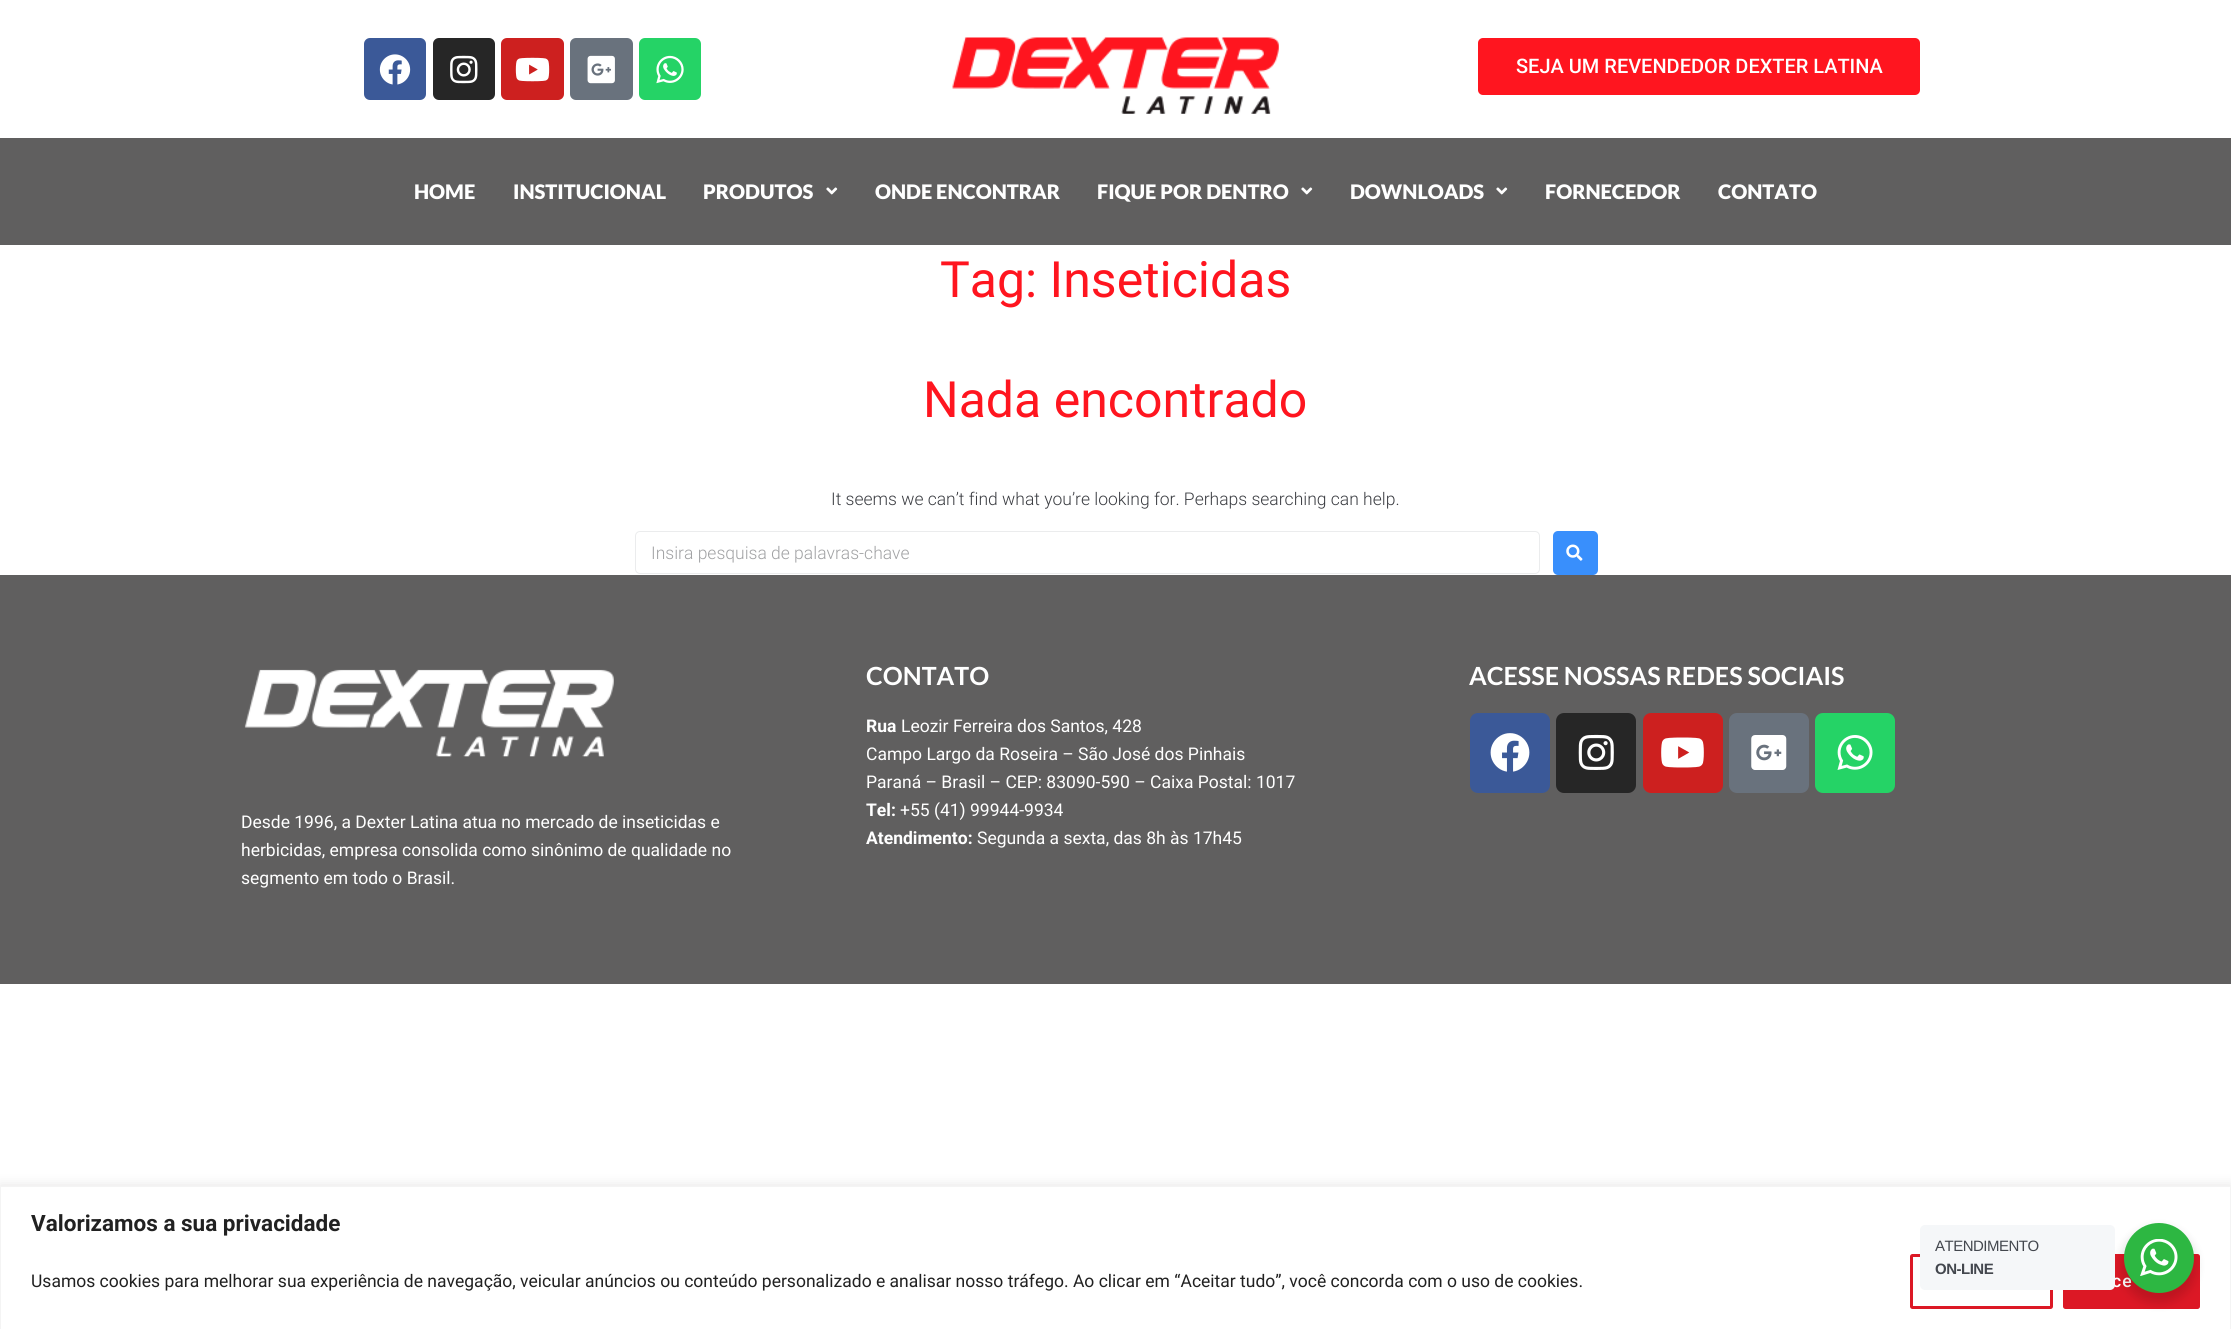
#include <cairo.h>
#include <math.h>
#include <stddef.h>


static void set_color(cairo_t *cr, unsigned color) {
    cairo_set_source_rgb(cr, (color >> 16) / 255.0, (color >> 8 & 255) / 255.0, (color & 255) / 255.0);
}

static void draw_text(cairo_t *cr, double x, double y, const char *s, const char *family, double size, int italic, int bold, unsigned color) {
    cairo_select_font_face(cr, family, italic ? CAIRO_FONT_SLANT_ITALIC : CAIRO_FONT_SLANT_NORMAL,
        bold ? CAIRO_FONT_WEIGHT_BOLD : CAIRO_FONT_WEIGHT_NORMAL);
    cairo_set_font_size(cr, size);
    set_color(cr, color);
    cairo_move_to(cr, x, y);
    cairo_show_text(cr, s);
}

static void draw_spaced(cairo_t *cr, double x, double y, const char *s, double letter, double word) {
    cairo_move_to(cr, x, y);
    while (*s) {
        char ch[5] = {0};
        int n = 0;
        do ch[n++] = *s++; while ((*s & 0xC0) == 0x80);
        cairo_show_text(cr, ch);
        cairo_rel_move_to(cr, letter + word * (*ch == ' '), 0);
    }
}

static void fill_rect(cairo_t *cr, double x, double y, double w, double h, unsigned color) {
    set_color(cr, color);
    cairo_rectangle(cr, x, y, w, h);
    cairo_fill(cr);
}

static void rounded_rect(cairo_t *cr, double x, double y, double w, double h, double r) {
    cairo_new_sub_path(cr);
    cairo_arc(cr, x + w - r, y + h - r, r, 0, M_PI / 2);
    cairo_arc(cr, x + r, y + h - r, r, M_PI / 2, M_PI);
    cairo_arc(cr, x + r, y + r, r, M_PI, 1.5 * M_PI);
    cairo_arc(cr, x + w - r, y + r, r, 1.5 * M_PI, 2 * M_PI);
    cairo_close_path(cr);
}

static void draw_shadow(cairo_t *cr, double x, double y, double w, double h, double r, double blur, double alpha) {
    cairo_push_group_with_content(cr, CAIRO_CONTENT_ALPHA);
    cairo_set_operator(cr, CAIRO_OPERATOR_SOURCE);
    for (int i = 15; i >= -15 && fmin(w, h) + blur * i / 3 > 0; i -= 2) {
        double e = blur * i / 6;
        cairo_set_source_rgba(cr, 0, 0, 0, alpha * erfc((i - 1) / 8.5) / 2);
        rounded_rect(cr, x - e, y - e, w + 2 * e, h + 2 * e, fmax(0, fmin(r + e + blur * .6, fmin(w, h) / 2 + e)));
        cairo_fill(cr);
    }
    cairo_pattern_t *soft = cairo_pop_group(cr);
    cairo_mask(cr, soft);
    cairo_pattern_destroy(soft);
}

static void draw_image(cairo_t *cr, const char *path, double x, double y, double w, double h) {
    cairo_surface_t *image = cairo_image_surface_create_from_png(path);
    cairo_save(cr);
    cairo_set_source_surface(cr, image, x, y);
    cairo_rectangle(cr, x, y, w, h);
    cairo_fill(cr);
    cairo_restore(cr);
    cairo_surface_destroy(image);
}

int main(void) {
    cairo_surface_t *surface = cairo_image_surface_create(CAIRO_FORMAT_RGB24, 2231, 1329);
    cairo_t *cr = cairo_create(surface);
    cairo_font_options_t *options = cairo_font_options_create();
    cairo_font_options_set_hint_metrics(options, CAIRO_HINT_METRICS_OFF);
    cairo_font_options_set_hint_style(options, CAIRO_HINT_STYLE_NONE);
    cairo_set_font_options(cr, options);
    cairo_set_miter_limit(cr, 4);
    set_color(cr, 0xFFFFFF);
    cairo_paint(cr);
    set_color(cr, 0x3B5998);
    rounded_rect(cr, 364, 38, 62, 62, 6);
    cairo_fill(cr);
    draw_image(cr, "assets/img1.png", 379, 54, 32, 31);
    set_color(cr, 0x262626);
    rounded_rect(cr, 433, 38, 62, 62, 6);
    cairo_fill(cr);
    draw_image(cr, "assets/img2.png", 450, 55, 28, 29);
    set_color(cr, 0xCD201F);
    rounded_rect(cr, 501, 38, 63, 62, 6);
    cairo_fill(cr);
    draw_image(cr, "assets/img3.png", 515, 57, 35, 25);
    set_color(cr, 0x69727D);
    rounded_rect(cr, 570, 38, 63, 62, 6);
    cairo_fill(cr);
    draw_image(cr, "assets/img4.png", 587, 55, 28, 29);
    set_color(cr, 0x25D366);
    rounded_rect(cr, 639, 38, 62, 62, 6);
    cairo_fill(cr);
    draw_image(cr, "assets/img5.png", 656, 55, 28, 29);
    draw_image(cr, "assets/img6.png", 952, 37, 327, 77);
    set_color(cr, 0xFF151F);
    rounded_rect(cr, 1478, 38, 442, 57, 5);
    cairo_fill(cr);
    draw_text(cr, 1516, 73, "SEJA UM REVENDEDOR DEXTER LATINA", "Roboto Medium", 20, 0, 0, 0xFFFFFF);
    fill_rect(cr, 0, 138, 2231, 107, 0x605F5F);
    draw_text(cr, 414, 199, "HOME", "Lato Black", 20, 0, 0, 0xFFFFFF);
    draw_text(cr, 513, 199, "INSTITUCIONAL", "Lato Black", 20, 0, 0, 0xFFFFFF);
    draw_text(cr, 703, 199, "PRODUTOS", "Lato Black", 20, 0, 0, 0xFFFFFF);
    draw_image(cr, "assets/img7.png", 826, 187, 12, 8);
    draw_text(cr, 875, 199, "ONDE ENCONTRAR", "Lato Black", 20, 0, 0, 0xFFFFFF);
    draw_text(cr, 1097, 199, "FIQUE POR DENTRO", "Lato Black", 20, 0, 0, 0xFFFFFF);
    draw_image(cr, "assets/img7.png", 1301, 187, 12, 8);
    draw_text(cr, 1350, 199, "DOWNLOADS", "Lato Black", 20, 0, 0, 0xFFFFFF);
    draw_image(cr, "assets/img7.png", 1496, 187, 12, 8);
    draw_text(cr, 1545, 199, "FORNECEDOR", "Lato Black", 20, 0, 0, 0xFFFFFF);
    draw_text(cr, 1718, 199, "CONTATO", "Lato Black", 20, 0, 0, 0xFFFFFF);
    draw_text(cr, 940, 297, "Tag: Inseticidas", "Roboto", 50, 0, 0, 0xFF151F);
    draw_text(cr, 923, 417, "Nada encontrado", "Roboto", 50, 0, 0, 0xFF151F);
    draw_text(cr, 831, 505, "It seems we can’t find what you’re looking for. Perhaps searching can help.", "Roboto Light", 17.5, 0, 0, 0x3B3D42);
    rounded_rect(cr, 635.5, 531.5, 904, 42, 4.5);
    set_color(cr, 0xEBECED);
    cairo_set_line_width(cr, 1);
    cairo_stroke(cr);
    draw_text(cr, 651, 559, "Insira pesquisa de palavras-chave", "Roboto Light", 17.5, 0, 0, 0xA1A2A4);
    set_color(cr, 0x398FFC);
    rounded_rect(cr, 1553, 531, 45, 44, 5);
    cairo_fill(cr);
    draw_image(cr, "assets/img8.png", 1566, 544, 17, 17);
    fill_rect(cr, 0, 575, 2231, 409, 0x605F5F);
    draw_text(cr, 866, 685, "CONTATO", "Lato", 25, 0, 1, 0xFFFFFF);
    draw_text(cr, 866, 732, "Rua", "Roboto", 17.5, 0, 1, 0xFFFFFF);
    draw_text(cr, 901, 732, "Leozir Ferreira dos Santos, 428", "Roboto", 17.5, 0, 0, 0xFFFFFF);
    draw_text(cr, 866, 760, "Campo Largo da Roseira – São José dos Pinhais", "Roboto", 17.5, 0, 0, 0xFFFFFF);
    draw_text(cr, 866, 788, "Paraná – Brasil – CEP: 83090-590 – Caixa Postal: 1017", "Roboto", 17.5, 0, 0, 0xFFFFFF);
    draw_text(cr, 866, 816, "Tel:", "Roboto", 17.5, 0, 1, 0xFFFFFF);
    draw_text(cr, 900, 816, "+55 (41) 99944-9934", "Roboto", 17.5, 0, 0, 0xFFFFFF);
    draw_text(cr, 866, 844, "Atendimento:", "Roboto", 17.5, 0, 1, 0xFFFFFF);
    draw_text(cr, 977, 844, "Segunda a sexta, das 8h às 17h45", "Roboto", 17.5, 0, 0, 0xFFFFFF);
    draw_text(cr, 1469, 685, "ACESSE NOSSAS REDES SOCIAIS", "Lato", 25, 0, 1, 0xFFFFFF);
    set_color(cr, 0x3B5998);
    rounded_rect(cr, 1470, 713, 80, 80, 8);
    cairo_fill(cr);
    draw_image(cr, "assets/img9.png", 1490, 733, 40, 39);
    set_color(cr, 0x262626);
    rounded_rect(cr, 1556, 713, 80, 80, 8);
    cairo_fill(cr);
    draw_image(cr, "assets/img10.png", 1578, 734, 36, 36);
    set_color(cr, 0xCD201F);
    rounded_rect(cr, 1643, 713, 80, 80, 8);
    cairo_fill(cr);
    draw_image(cr, "assets/img11.png", 1661, 737, 43, 31);
    set_color(cr, 0x69727D);
    rounded_rect(cr, 1729, 713, 80, 80, 8);
    cairo_fill(cr);
    draw_image(cr, "assets/img12.png", 1751, 735, 36, 35);
    set_color(cr, 0x25D366);
    rounded_rect(cr, 1815, 713, 80, 80, 8);
    cairo_fill(cr);
    draw_image(cr, "assets/img13.png", 1837, 735, 36, 35);
    draw_image(cr, "assets/img14.png", 244, 669, 370, 88);
    draw_text(cr, 241, 828, "Desde 1996, a Dexter Latina atua no mercado de inseticidas e", "Roboto", 17.5, 0, 0, 0xFFFFFF);
    draw_text(cr, 241, 856, "herbicidas, empresa consolida como sinônimo de qualidade no", "Roboto", 17.5, 0, 0, 0xFFFFFF);
    draw_text(cr, 241, 884, "segmento em todo o Brasil.", "Roboto", 17.5, 0, 0, 0xFFFFFF);
    set_color(cr, 0xACABAB);
    draw_shadow(cr, 0, 1185, 2231, 144, 0, 6, 0.3);
    set_color(cr, 0xFFFFFF);
    cairo_rectangle(cr, 0.5, 1186.5, 2230, 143);
    cairo_fill_preserve(cr);
    set_color(cr, 0xF4F4F4);
    cairo_stroke(cr);
    draw_text(cr, 31, 1231, "Valorizamos a sua privacidade", "Roboto", 22.5, 0, 1, 0x212121);
    draw_text(cr, 31, 1287, "Usamos cookies para melhorar sua experiência de navegação, veicular anúncios ou conteúdo personalizado e analisar nosso tráfego. Ao clicar em “Aceitar tudo”, você concorda com o uso de cookies.", "Roboto", 17.5, 0, 0, 0x212121);
    rounded_rect(cr, 1911.5, 1255.5, 140, 52, 1);
    set_color(cr, 0xDC1825);
    cairo_set_line_width(cr, 3);
    cairo_stroke(cr);
    rounded_rect(cr, 2064.5, 1255.5, 134, 52, 1);
    cairo_fill_preserve(cr);
    cairo_stroke(cr);
    cairo_select_font_face(cr, "Roboto Medium", CAIRO_FONT_SLANT_NORMAL, CAIRO_FONT_WEIGHT_NORMAL);
    set_color(cr, 0xFFFFFF);
    draw_spaced(cr, 2112, 1287, "ce", 1, 0);
    set_color(cr, 0x000000);
    draw_shadow(cr, 2121, 1228, 75, 75, 37.5, 5, 0.14);
    set_color(cr, 0xF5F7F9);
    rounded_rect(cr, 1920, 1225, 195, 65, 5);
    cairo_fill(cr);
    cairo_select_font_face(cr, "Liberation Sans", CAIRO_FONT_SLANT_NORMAL, CAIRO_FONT_WEIGHT_NORMAL);
    cairo_set_font_size(cr, 15);
    set_color(cr, 0x43474E);
    draw_spaced(cr, 1935, 1251, "ATENDIMENTO", -0.5, 0);
    cairo_select_font_face(cr, "Liberation Sans", CAIRO_FONT_SLANT_NORMAL, CAIRO_FONT_WEIGHT_BOLD);
    draw_spaced(cr, 1935, 1274, "ON-LINE", -0.5, 0);
    set_color(cr, 0x2DB742);
    cairo_new_path(cr);
    cairo_arc(cr, 2159, 1258, 35, 0, 2 * M_PI);
    cairo_fill(cr);
    draw_image(cr, "assets/img15.png", 2140, 1239, 38, 37);
    cairo_surface_write_to_png(surface, "output.png");
    cairo_font_options_destroy(options);
    cairo_destroy(cr);
    cairo_surface_destroy(surface);
    return 0;
}
